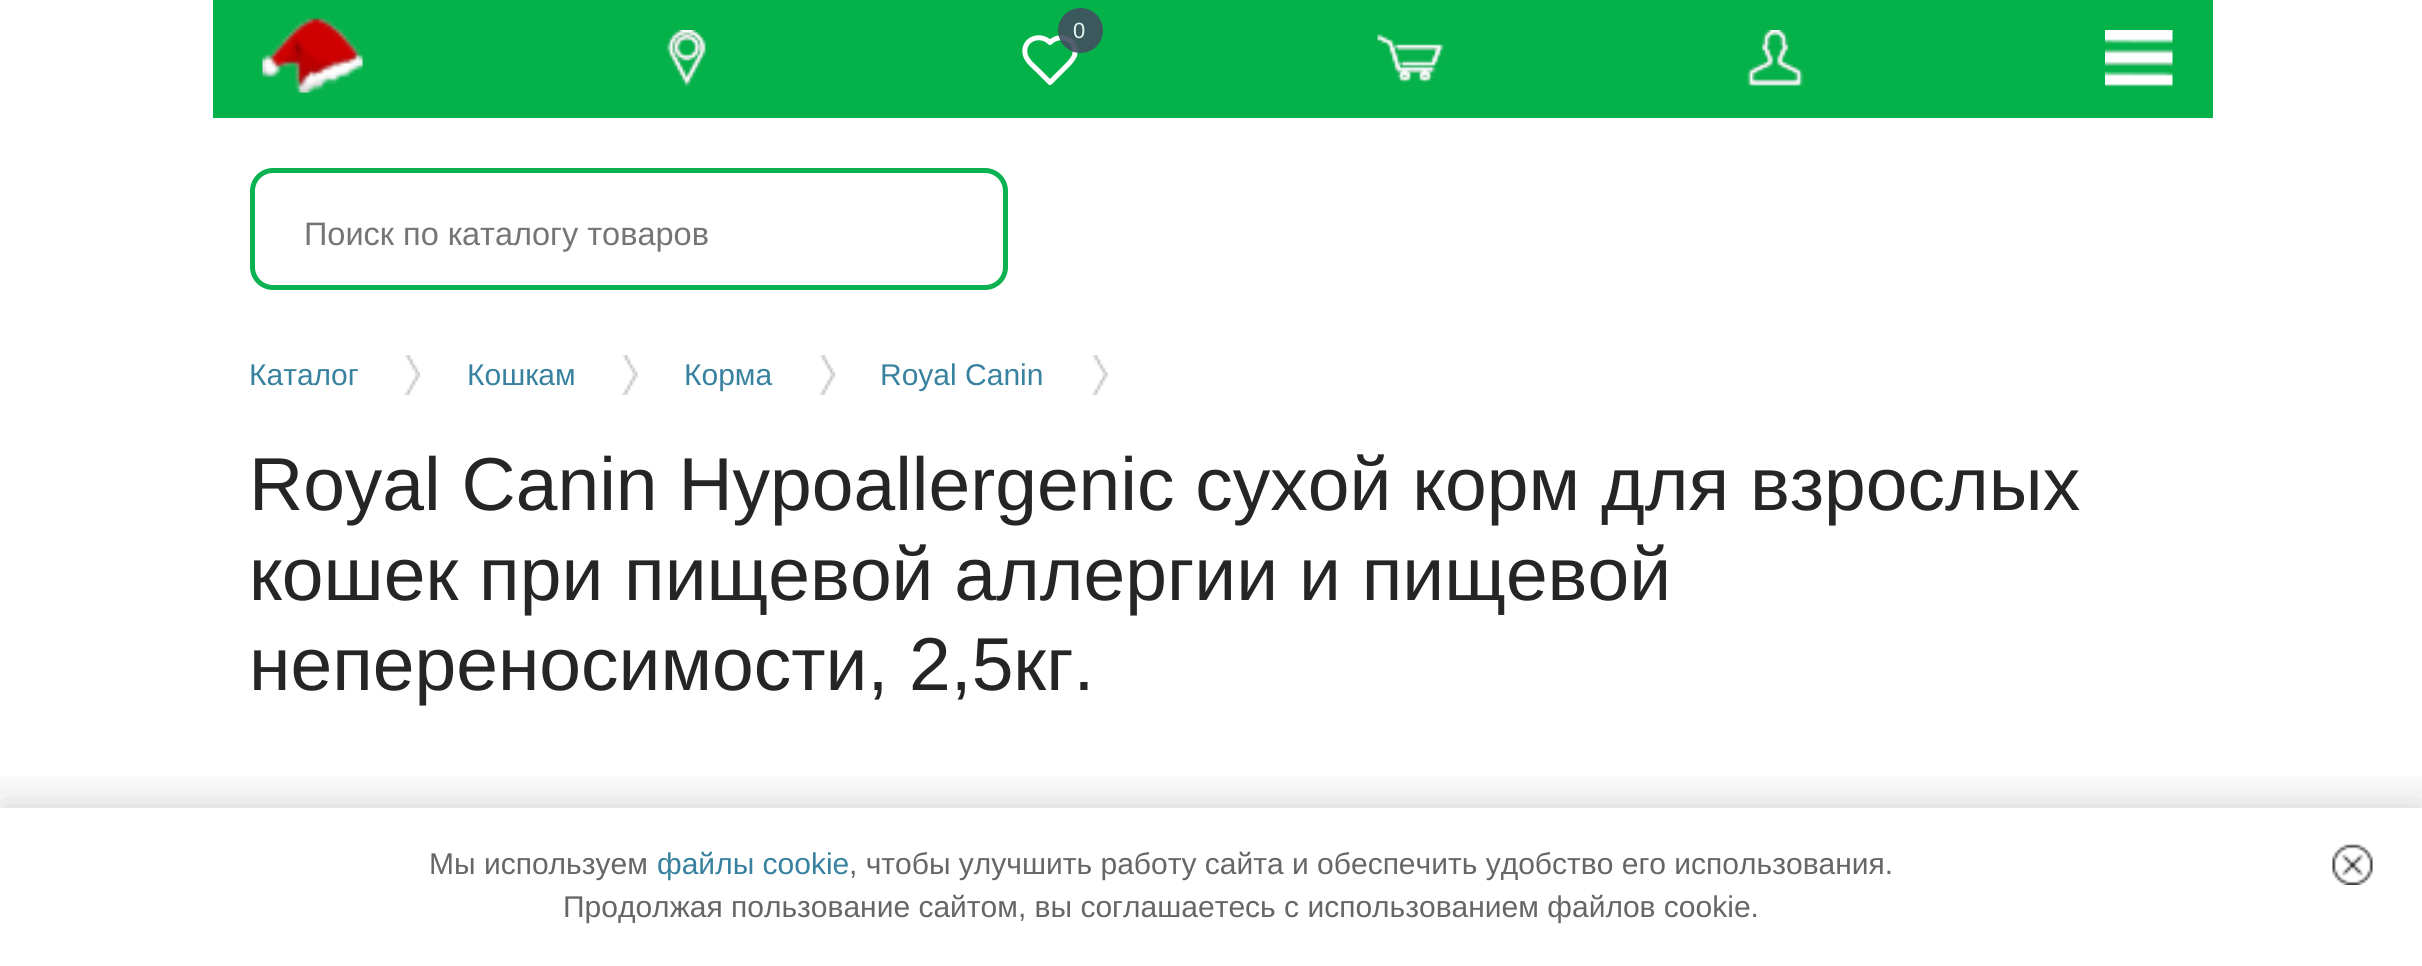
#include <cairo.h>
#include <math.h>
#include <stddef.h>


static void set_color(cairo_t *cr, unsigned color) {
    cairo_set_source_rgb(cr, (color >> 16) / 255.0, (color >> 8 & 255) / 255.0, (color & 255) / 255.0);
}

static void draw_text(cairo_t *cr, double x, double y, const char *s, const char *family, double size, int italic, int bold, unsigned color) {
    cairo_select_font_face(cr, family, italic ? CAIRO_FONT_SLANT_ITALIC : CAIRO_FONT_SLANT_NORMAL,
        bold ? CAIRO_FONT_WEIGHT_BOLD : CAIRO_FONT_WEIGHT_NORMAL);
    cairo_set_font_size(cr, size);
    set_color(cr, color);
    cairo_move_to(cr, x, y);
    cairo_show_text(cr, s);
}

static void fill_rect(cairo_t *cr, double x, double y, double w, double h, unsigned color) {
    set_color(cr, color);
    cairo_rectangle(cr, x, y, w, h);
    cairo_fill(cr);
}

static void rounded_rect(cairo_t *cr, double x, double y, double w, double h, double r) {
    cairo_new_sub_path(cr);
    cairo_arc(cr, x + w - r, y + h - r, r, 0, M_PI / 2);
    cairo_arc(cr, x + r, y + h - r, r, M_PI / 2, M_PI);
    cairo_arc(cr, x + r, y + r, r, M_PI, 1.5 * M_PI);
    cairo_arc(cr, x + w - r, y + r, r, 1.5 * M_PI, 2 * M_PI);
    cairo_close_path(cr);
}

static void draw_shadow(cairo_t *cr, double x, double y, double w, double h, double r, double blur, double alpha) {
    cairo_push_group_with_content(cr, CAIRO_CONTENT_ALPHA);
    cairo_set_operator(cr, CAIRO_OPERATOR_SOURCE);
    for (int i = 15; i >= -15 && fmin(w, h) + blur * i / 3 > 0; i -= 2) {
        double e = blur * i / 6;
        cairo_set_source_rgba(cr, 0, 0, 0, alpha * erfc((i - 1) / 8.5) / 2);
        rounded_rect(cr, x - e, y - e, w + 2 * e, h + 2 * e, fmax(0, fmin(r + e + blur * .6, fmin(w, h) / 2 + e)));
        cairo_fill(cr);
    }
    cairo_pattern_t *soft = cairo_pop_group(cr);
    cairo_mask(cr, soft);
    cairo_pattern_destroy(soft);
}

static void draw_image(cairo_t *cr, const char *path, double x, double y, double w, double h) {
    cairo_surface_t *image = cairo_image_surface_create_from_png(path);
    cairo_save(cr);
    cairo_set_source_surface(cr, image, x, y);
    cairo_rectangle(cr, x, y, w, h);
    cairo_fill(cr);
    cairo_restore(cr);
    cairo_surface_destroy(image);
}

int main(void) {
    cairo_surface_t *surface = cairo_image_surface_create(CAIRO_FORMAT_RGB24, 2422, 966);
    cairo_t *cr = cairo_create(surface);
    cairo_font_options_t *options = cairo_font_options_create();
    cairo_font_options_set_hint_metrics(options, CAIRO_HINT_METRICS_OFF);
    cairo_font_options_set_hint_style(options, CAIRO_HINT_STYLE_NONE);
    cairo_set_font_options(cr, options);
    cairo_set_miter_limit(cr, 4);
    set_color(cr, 0xFFFFFF);
    cairo_paint(cr);
    fill_rect(cr, 213, 0, 2000, 118, 0x05B24A);
    draw_image(cr, "assets/img1.png", 262, 18, 101, 75);
    draw_image(cr, "assets/img2.png", 666, 30, 40, 56);
    cairo_new_path(cr);
    cairo_move_to(cr, 1067.5, 65);
    cairo_curve_to(cr, 1070.5, 62, 1073, 59, 1074.5, 55.5);
    cairo_curve_to(cr, 1079, 40, 1060.5, 32, 1050, 42.5);
    cairo_curve_to(cr, 1039.5, 32, 1021, 40, 1025.5, 55.5);
    cairo_curve_to(cr, 1027.5, 61.5, 1034, 66.5, 1038.5, 71);
    cairo_line_to(cr, 1050, 82.5);
    cairo_close_path(cr);
    set_color(cr, 0xFFFFFF);
    cairo_set_line_width(cr, 5);
    cairo_set_line_cap(cr, CAIRO_LINE_CAP_ROUND);
    cairo_set_line_join(cr, CAIRO_LINE_JOIN_ROUND);
    cairo_stroke(cr);
    cairo_set_source_rgba(cr, 0.259, 0.31, 0.376, 0.9);
    cairo_arc(cr, 1080.5, 30.5, 22.5, 0, 2 * M_PI);
    cairo_fill(cr);
    draw_text(cr, 1073, 38, "0", "Liberation Sans", 22, 0, 0, 0xE6F7ED);
    draw_image(cr, "assets/img3.png", 1377, 34, 67, 49);
    draw_image(cr, "assets/img4.png", 1747, 30, 57, 56);
    draw_image(cr, "assets/img5.png", 2105, 30, 68, 57);
    rounded_rect(cr, 252.5, 170.5, 753, 117, 20.5);
    set_color(cr, 0x0BB252);
    cairo_set_line_cap(cr, CAIRO_LINE_CAP_BUTT);
    cairo_set_line_join(cr, CAIRO_LINE_JOIN_MITER);
    cairo_stroke(cr);
    draw_text(cr, 304, 245, "Поиск по каталогу товаров", "Liberation Sans", 32.5, 0, 0, 0x757575);
    draw_text(cr, 249, 385, "Каталог", "Liberation Sans", 30, 0, 0, 0x3882A0);
    draw_image(cr, "assets/img6.png", 404, 355, 16, 40);
    draw_text(cr, 467, 385, "Кошкам", "Liberation Sans", 30, 0, 0, 0x3882A0);
    draw_image(cr, "assets/img7.png", 622, 355, 16, 40);
    draw_text(cr, 684, 385, "Корма", "Liberation Sans", 30, 0, 0, 0x3882A0);
    draw_image(cr, "assets/img6.png", 819, 355, 16, 40);
    draw_text(cr, 880, 385, "Royal Canin", "Liberation Sans", 30, 0, 0, 0x3882A0);
    draw_image(cr, "assets/img7.png", 1092, 355, 16, 40);
    draw_text(cr, 249, 510, "Royal Canin Hypoallergenic сухой корм для взрослых", "Liberation Sans", 75, 0, 0, 0x252525);
    draw_text(cr, 249, 600, "кошек при пищевой аллергии и пищевой", "Liberation Sans", 75, 0, 0, 0x252525);
    draw_text(cr, 249, 690, "непереносимости, 2,5кг.", "Liberation Sans", 75, 0, 0, 0x252525);
    cairo_save(cr);
    cairo_rectangle(cr, 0, 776, 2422, 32);
    cairo_clip(cr);
    set_color(cr, 0x000000);
    draw_shadow(cr, 0, 808, 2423, 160, 0, 25, 0.2);
    cairo_restore(cr);
    draw_text(cr, 429, 874, "Мы используем", "Liberation Sans", 30, 0, 0, 0x666666);
    draw_text(cr, 657, 874, "файлы cookie", "Liberation Sans", 30, 0, 0, 0x3882A0);
    draw_text(cr, 849, 874, ", чтобы улучшить работу сайта и обеспечить удобство его использования.", "Liberation Sans", 30, 0, 0, 0x666666);
    draw_text(cr, 563, 917, "Продолжая пользование сайтом, вы соглашаетесь с использованием файлов cookie.", "Liberation Sans", 30, 0, 0, 0x666666);
    draw_image(cr, "assets/img8.png", 2332, 844, 41, 41);
    cairo_surface_write_to_png(surface, "output.png");
    cairo_font_options_destroy(options);
    cairo_destroy(cr);
    cairo_surface_destroy(surface);
    return 0;
}
